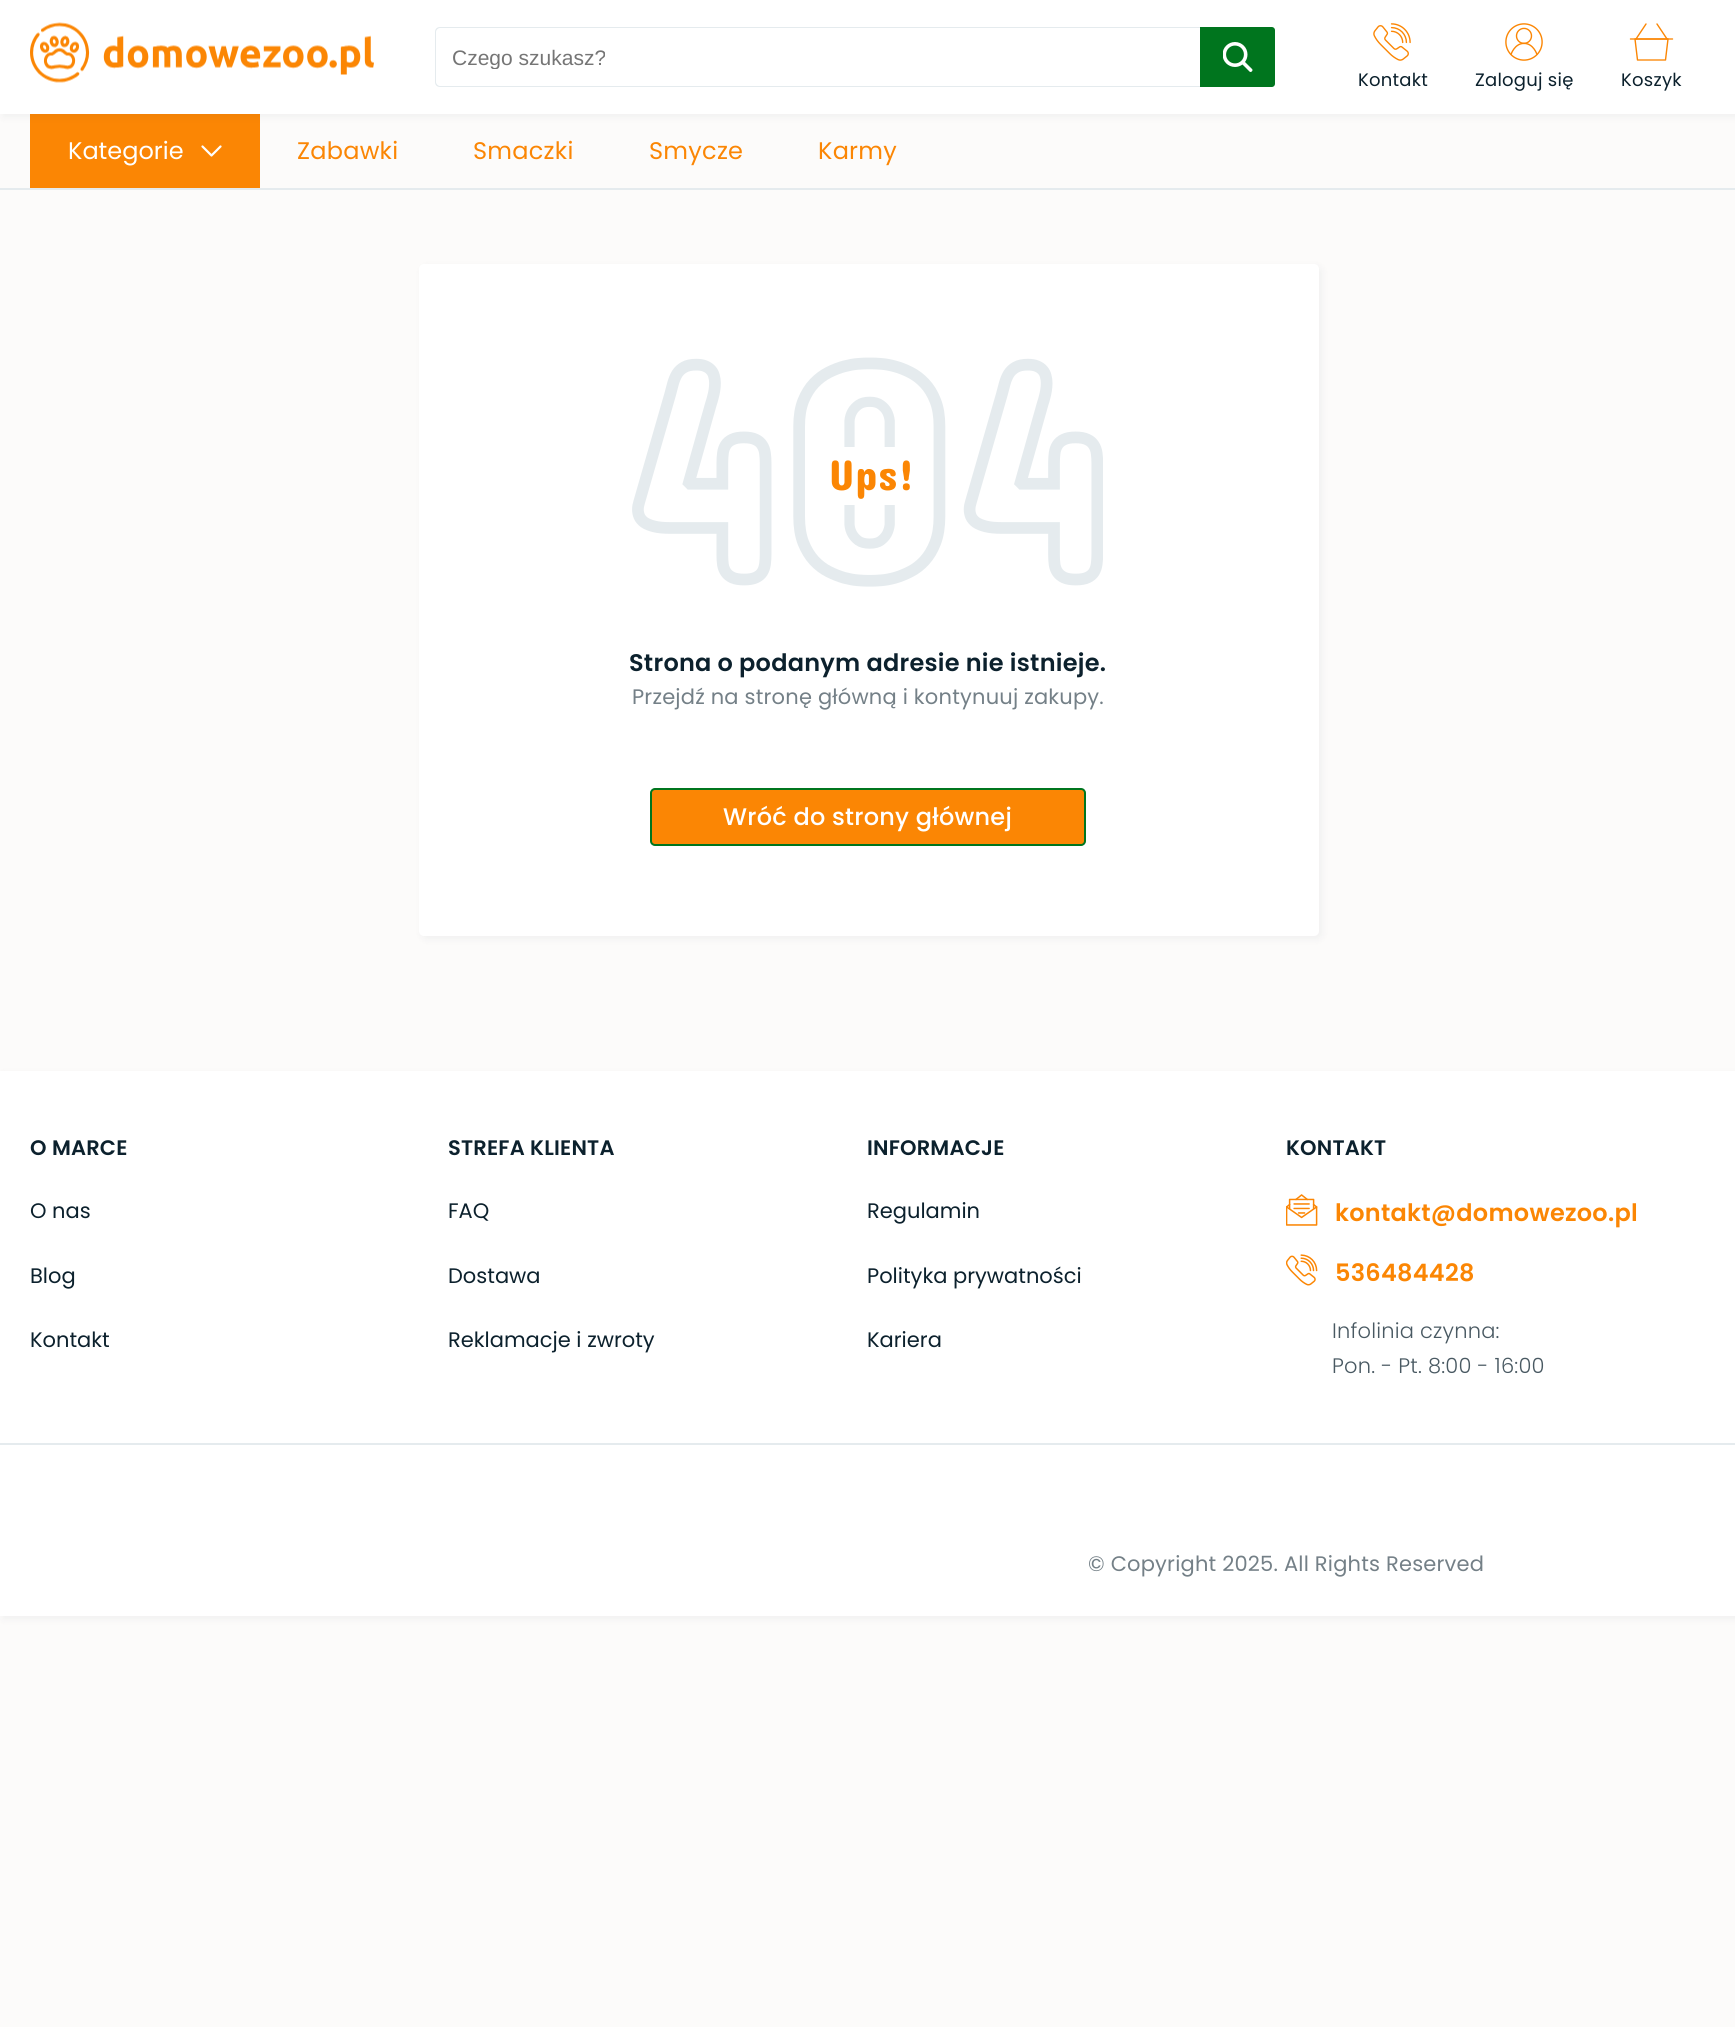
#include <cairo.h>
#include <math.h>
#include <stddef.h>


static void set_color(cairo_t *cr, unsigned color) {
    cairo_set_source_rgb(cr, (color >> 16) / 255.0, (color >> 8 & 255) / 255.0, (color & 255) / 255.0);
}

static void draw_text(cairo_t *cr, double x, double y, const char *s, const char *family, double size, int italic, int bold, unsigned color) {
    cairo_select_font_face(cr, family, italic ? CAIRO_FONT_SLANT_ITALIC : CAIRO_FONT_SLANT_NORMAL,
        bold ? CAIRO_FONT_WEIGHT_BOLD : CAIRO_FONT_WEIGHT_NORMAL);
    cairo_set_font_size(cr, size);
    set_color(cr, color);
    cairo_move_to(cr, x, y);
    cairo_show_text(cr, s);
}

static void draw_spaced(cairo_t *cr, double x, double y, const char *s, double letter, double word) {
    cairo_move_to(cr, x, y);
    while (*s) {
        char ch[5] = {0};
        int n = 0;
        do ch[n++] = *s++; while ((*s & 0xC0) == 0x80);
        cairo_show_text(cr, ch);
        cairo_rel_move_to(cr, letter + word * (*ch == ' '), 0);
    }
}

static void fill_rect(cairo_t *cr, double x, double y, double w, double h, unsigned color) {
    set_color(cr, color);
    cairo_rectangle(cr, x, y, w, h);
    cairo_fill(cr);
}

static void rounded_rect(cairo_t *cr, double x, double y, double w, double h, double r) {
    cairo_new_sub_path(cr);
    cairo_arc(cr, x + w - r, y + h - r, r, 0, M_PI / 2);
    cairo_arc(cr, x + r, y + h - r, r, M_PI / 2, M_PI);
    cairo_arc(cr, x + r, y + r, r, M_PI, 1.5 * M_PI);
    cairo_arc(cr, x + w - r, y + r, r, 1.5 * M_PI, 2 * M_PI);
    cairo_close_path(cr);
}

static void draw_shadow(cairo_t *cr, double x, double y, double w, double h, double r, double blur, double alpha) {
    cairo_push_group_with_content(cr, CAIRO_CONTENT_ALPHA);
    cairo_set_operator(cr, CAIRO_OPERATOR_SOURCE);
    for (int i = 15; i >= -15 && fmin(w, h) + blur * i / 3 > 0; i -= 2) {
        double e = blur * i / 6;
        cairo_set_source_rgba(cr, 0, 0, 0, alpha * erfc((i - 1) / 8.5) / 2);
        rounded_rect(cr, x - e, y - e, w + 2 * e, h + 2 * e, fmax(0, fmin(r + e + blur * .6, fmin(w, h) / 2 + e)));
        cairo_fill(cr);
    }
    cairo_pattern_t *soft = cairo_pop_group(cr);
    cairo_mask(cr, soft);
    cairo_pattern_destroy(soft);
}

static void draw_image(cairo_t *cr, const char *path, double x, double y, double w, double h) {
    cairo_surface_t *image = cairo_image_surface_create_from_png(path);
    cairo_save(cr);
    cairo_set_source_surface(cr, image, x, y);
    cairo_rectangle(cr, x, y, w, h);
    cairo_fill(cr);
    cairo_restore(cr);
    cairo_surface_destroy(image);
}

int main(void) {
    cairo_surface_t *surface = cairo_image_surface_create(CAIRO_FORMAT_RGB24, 1735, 2027);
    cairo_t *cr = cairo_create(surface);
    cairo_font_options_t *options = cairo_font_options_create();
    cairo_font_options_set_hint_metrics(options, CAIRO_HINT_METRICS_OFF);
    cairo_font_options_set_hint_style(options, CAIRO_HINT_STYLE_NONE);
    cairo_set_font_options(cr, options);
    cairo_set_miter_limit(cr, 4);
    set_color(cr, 0xFCFBFA);
    cairo_paint(cr);
    fill_rect(cr, 30, 114, 230, 74, 0xFB8604);
    set_color(cr, 0x0F1D35);
    draw_shadow(cr, 3, 3, 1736, 114, 0, 4, 0.05);
    fill_rect(cr, 0, 0, 1735, 114, 0xFFFFFF);
    draw_image(cr, "assets/img1.png", 30, 22, 344, 61);
    set_color(cr, 0xE5EBEE);
    cairo_set_fill_rule(cr, CAIRO_FILL_RULE_EVEN_ODD);
    cairo_new_path(cr);
    cairo_move_to(cr, 440, 27);
    cairo_line_to(cr, 1200, 27);
    cairo_line_to(cr, 1200, 87);
    cairo_line_to(cr, 440, 87);
    cairo_curve_to(cr, 437, 87, 435, 85, 435, 82);
    cairo_line_to(cr, 435, 32);
    cairo_curve_to(cr, 435, 29, 437, 27, 440, 27);
    cairo_close_path(cr);
    cairo_move_to(cr, 440, 28);
    cairo_line_to(cr, 1200, 28);
    cairo_line_to(cr, 1200, 86);
    cairo_line_to(cr, 440, 86);
    cairo_curve_to(cr, 438, 86, 436, 84, 436, 82);
    cairo_line_to(cr, 436, 32);
    cairo_curve_to(cr, 436, 30, 438, 28, 440, 28);
    cairo_close_path(cr);
    cairo_fill(cr);
    cairo_save(cr);
    cairo_set_fill_rule(cr, CAIRO_FILL_RULE_WINDING);
    cairo_rectangle(cr, 453, 45, 687, 24);
    cairo_clip(cr);
    draw_text(cr, 452, 65, "Czego szukasz?", "Liberation Sans", 21, 0, 0, 0x757575);
    cairo_restore(cr);
    set_color(cr, 0x00751E);
    cairo_new_path(cr);
    cairo_move_to(cr, 1200, 27);
    cairo_line_to(cr, 1272, 27);
    cairo_curve_to(cr, 1273.5, 27, 1275, 28.5, 1275, 30);
    cairo_line_to(cr, 1275, 84);
    cairo_curve_to(cr, 1275, 85.5, 1273.5, 87, 1272, 87);
    cairo_line_to(cr, 1200, 87);
    cairo_close_path(cr);
    cairo_fill(cr);
    draw_image(cr, "assets/img2.png", 1223, 42, 30, 30);
    draw_image(cr, "assets/img3.png", 1373, 23, 38, 38);
    cairo_select_font_face(cr, "Poppins", CAIRO_FONT_SLANT_NORMAL, CAIRO_FONT_WEIGHT_NORMAL);
    cairo_set_font_size(cr, 18);
    set_color(cr, 0x0C212D);
    draw_spaced(cr, 1358, 86, "Kontakt", 0.25, 0);
    draw_image(cr, "assets/img4.png", 1505, 23, 38, 38);
    draw_spaced(cr, 1475, 86, "Zaloguj się", 0.25, 0);
    cairo_new_path(cr);
    cairo_move_to(cr, 1630.5, 39);
    cairo_line_to(cr, 1672.5, 39);
    set_color(cr, 0xFB8604);
    cairo_set_line_width(cr, 1.4);
    cairo_set_line_cap(cr, CAIRO_LINE_CAP_ROUND);
    cairo_stroke(cr);
    cairo_new_path(cr);
    cairo_move_to(cr, 1637.5, 60);
    cairo_line_to(cr, 1635, 39);
    cairo_line_to(cr, 1668, 39);
    cairo_line_to(cr, 1665.5, 60);
    cairo_close_path(cr);
    cairo_set_line_join(cr, CAIRO_LINE_JOIN_ROUND);
    cairo_stroke(cr);
    cairo_new_path(cr);
    cairo_move_to(cr, 1646, 24);
    cairo_line_to(cr, 1636, 39);
    cairo_move_to(cr, 1657, 24);
    cairo_line_to(cr, 1667, 39);
    cairo_set_line_join(cr, CAIRO_LINE_JOIN_MITER);
    cairo_stroke(cr);
    set_color(cr, 0x0C212D);
    draw_spaced(cr, 1621, 86, "Koszyk", 0.25, 0);
    fill_rect(cr, 0, 188, 1735, 2, 0xE5EBEE);
    draw_text(cr, 68, 159, "Kategorie", "Poppins", 24, 0, 0, 0xFFFFFF);
    cairo_new_path(cr);
    cairo_move_to(cr, 202.5, 146.5);
    cairo_line_to(cr, 211.5, 155.5);
    cairo_line_to(cr, 220.5, 146.5);
    cairo_set_line_width(cr, 2.2);
    cairo_set_line_join(cr, CAIRO_LINE_JOIN_ROUND);
    cairo_stroke(cr);
    set_color(cr, 0xFB8604);
    draw_spaced(cr, 297, 159, "Zabawki", 0.25, 0);
    draw_spaced(cr, 473, 159, "Smaczki", 0.25, 0);
    draw_spaced(cr, 649, 159, "Smycze", 0.25, 0);
    draw_spaced(cr, 818, 159, "Karmy", 0.25, 0);
    set_color(cr, 0x0F1D35);
    draw_shadow(cr, 422, 267, 900, 672, 5, 4, 0.05);
    set_color(cr, 0xFFFFFF);
    rounded_rect(cr, 419, 264, 900, 672, 5);
    cairo_fill(cr);
    draw_image(cr, "assets/img5.png", 632, 357, 471, 230);
    cairo_select_font_face(cr, "Poppins SemiBold", CAIRO_FONT_SLANT_NORMAL, CAIRO_FONT_WEIGHT_NORMAL);
    set_color(cr, 0x0C212D);
    draw_spaced(cr, 629, 671, "Strona o podanym adresie nie istnieje.", 0.25, 0);
    cairo_select_font_face(cr, "Poppins", CAIRO_FONT_SLANT_NORMAL, CAIRO_FONT_WEIGHT_NORMAL);
    cairo_set_font_size(cr, 21);
    set_color(cr, 0x748087);
    draw_spaced(cr, 632, 704, "Przejdź na stronę główną i kontynuuj zakupy.", 0.2, 0);
    set_color(cr, 0xFB8604);
    rounded_rect(cr, 651, 789, 434, 56, 4);
    cairo_fill_preserve(cr);
    set_color(cr, 0x00751E);
    cairo_set_line_width(cr, 2);
    cairo_set_line_cap(cr, CAIRO_LINE_CAP_BUTT);
    cairo_set_line_join(cr, CAIRO_LINE_JOIN_MITER);
    cairo_stroke(cr);
    cairo_select_font_face(cr, "Poppins Medium", CAIRO_FONT_SLANT_NORMAL, CAIRO_FONT_WEIGHT_NORMAL);
    cairo_set_font_size(cr, 24);
    set_color(cr, 0xFFFFFF);
    draw_spaced(cr, 723, 825, "Wróć do strony głównej", 0.25, 0);
    set_color(cr, 0x0F1D35);
    draw_shadow(cr, 3, 1074, 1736, 545, 0, 4, 0.05);
    fill_rect(cr, 0, 1071, 1735, 545, 0xFFFFFF);
    cairo_select_font_face(cr, "Poppins SemiBold", CAIRO_FONT_SLANT_NORMAL, CAIRO_FONT_WEIGHT_NORMAL);
    cairo_set_font_size(cr, 21);
    set_color(cr, 0x0C212D);
    draw_spaced(cr, 30, 1155, "O MARCE", 0.2, 0);
    draw_text(cr, 30, 1218, "O nas", "Poppins", 21, 0, 0, 0x0C212D);
    draw_text(cr, 30, 1283, "Blog", "Poppins", 21, 0, 0, 0x0C212D);
    draw_text(cr, 30, 1347, "Kontakt", "Poppins", 21, 0, 0, 0x0C212D);
    cairo_select_font_face(cr, "Poppins SemiBold", CAIRO_FONT_SLANT_NORMAL, CAIRO_FONT_WEIGHT_NORMAL);
    draw_spaced(cr, 448, 1155, "STREFA KLIENTA", 0.2, 0);
    draw_text(cr, 448, 1218, "FAQ", "Poppins", 21, 0, 0, 0x0C212D);
    draw_text(cr, 448, 1283, "Dostawa", "Poppins", 21, 0, 0, 0x0C212D);
    draw_text(cr, 448, 1347, "Reklamacje i zwroty", "Poppins", 21, 0, 0, 0x0C212D);
    cairo_select_font_face(cr, "Poppins SemiBold", CAIRO_FONT_SLANT_NORMAL, CAIRO_FONT_WEIGHT_NORMAL);
    draw_spaced(cr, 867, 1155, "INFORMACJE", 0.2, 0);
    draw_text(cr, 867, 1218, "Regulamin", "Poppins", 21, 0, 0, 0x0C212D);
    draw_text(cr, 867, 1283, "Polityka prywatności", "Poppins", 21, 0, 0, 0x0C212D);
    draw_text(cr, 867, 1347, "Kariera", "Poppins", 21, 0, 0, 0x0C212D);
    cairo_select_font_face(cr, "Poppins SemiBold", CAIRO_FONT_SLANT_NORMAL, CAIRO_FONT_WEIGHT_NORMAL);
    draw_spaced(cr, 1286, 1155, "KONTAKT", 0.2, 0);
    draw_image(cr, "assets/img6.png", 1286, 1194, 32, 32);
    cairo_set_font_size(cr, 24);
    set_color(cr, 0xFB8604);
    draw_spaced(cr, 1335, 1221, "kontakt@domowezoo.pl", 0.25, 0);
    draw_image(cr, "assets/img7.png", 1286, 1254, 32, 32);
    draw_spaced(cr, 1335, 1281, "536484428", 0.25, 0);
    cairo_select_font_face(cr, "Poppins Light", CAIRO_FONT_SLANT_NORMAL, CAIRO_FONT_WEIGHT_NORMAL);
    cairo_set_font_size(cr, 21);
    set_color(cr, 0x495962);
    draw_spaced(cr, 1332, 1338, "Infolinia czynna:", 0.2, 0);
    draw_spaced(cr, 1332, 1373, "Pon. - Pt. 8:00 - 16:00", 0.2, 0);
    fill_rect(cr, 0, 1443, 1735, 2, 0xE5EBEE);
    cairo_select_font_face(cr, "Poppins", CAIRO_FONT_SLANT_NORMAL, CAIRO_FONT_WEIGHT_NORMAL);
    set_color(cr, 0x748087);
    draw_spaced(cr, 1088, 1571, "© Copyright 2025. All Rights Reserved", 0.2, 0);
    cairo_surface_write_to_png(surface, "output.png");
    cairo_font_options_destroy(options);
    cairo_destroy(cr);
    cairo_surface_destroy(surface);
    return 0;
}
